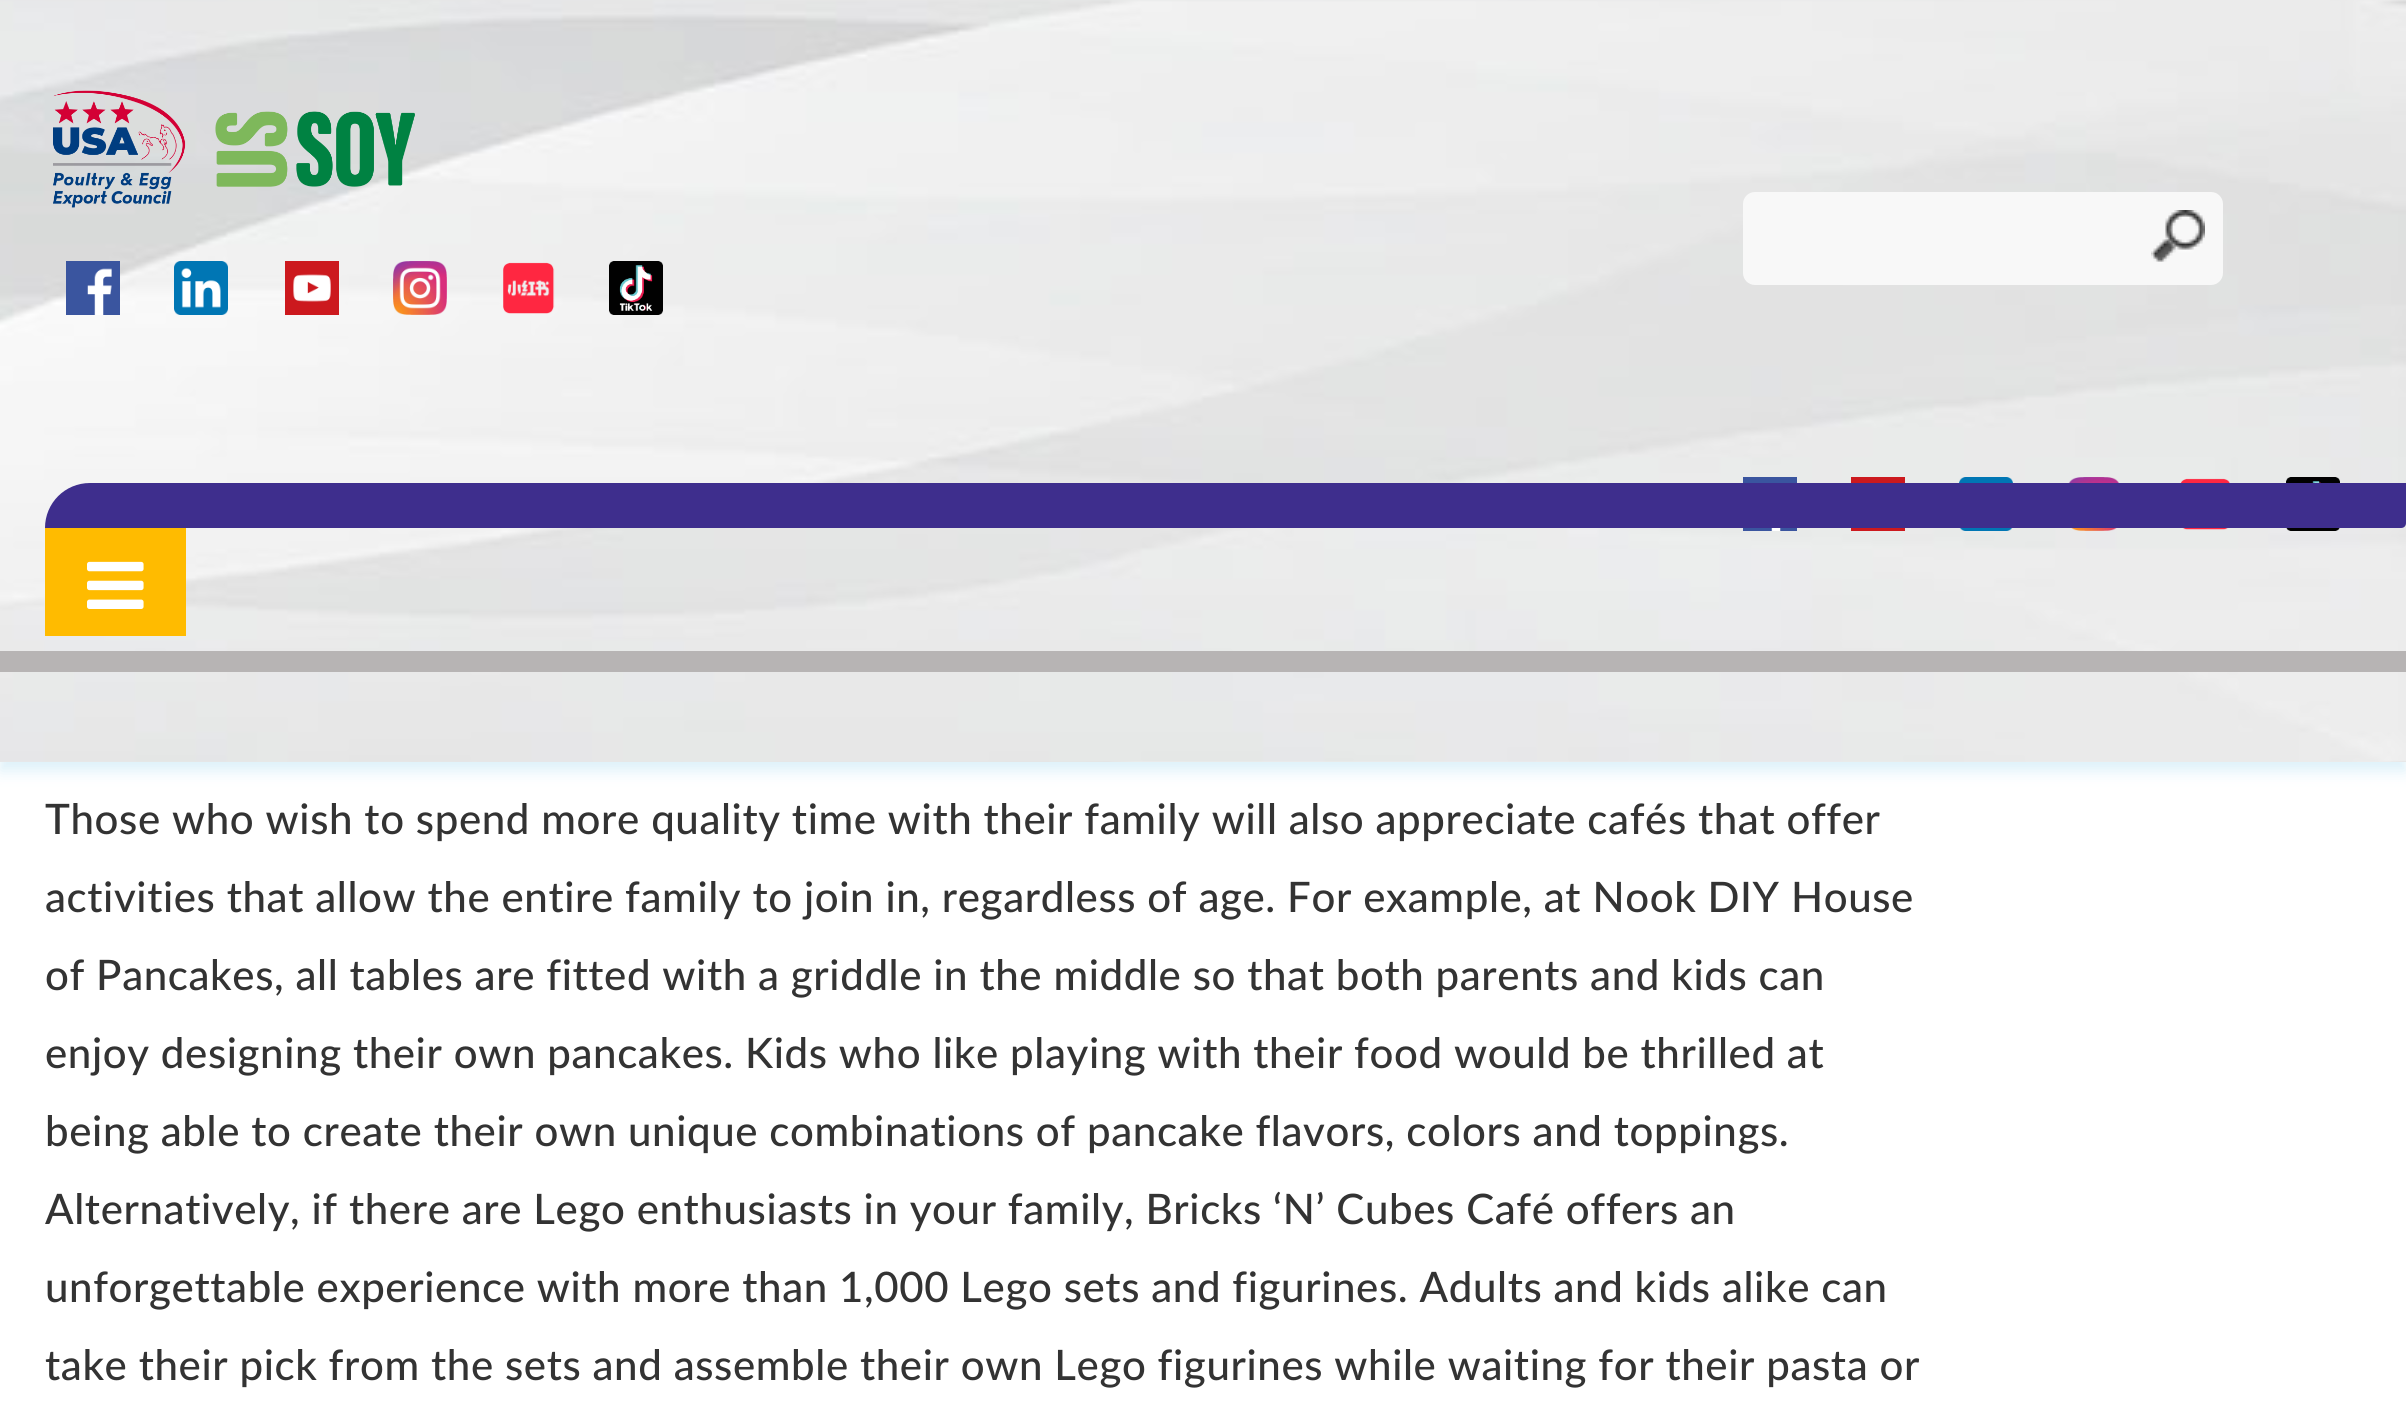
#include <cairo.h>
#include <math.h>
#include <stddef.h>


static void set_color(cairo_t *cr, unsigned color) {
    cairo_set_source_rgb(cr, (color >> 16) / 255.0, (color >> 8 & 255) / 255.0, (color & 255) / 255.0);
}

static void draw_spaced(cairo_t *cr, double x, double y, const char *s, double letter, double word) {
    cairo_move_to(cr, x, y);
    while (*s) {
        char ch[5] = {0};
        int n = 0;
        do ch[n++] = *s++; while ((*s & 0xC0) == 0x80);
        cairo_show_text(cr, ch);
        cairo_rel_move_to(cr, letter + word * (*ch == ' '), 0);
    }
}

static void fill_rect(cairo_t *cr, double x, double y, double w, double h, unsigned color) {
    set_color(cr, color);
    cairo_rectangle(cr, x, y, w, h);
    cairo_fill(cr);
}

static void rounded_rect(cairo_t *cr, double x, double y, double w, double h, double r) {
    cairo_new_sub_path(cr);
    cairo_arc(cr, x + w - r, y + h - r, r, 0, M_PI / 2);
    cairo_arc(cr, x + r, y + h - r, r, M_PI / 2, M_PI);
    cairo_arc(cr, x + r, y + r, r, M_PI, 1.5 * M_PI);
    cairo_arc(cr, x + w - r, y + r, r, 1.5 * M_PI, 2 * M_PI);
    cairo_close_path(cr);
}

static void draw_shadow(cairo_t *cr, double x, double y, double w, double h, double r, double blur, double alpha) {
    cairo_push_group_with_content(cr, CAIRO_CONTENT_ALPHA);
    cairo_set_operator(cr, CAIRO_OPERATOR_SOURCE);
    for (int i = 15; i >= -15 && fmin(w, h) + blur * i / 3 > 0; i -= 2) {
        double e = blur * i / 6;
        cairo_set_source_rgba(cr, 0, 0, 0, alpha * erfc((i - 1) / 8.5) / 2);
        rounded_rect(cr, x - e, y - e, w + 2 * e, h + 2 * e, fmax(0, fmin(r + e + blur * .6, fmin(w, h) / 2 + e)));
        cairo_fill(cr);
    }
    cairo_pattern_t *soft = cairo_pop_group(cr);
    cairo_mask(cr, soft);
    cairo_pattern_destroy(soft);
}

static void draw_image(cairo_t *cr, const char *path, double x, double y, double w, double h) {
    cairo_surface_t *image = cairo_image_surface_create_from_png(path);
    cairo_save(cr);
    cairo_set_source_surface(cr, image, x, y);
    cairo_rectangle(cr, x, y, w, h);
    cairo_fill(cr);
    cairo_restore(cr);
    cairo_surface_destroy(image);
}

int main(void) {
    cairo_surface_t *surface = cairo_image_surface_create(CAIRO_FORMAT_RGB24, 2406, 1409);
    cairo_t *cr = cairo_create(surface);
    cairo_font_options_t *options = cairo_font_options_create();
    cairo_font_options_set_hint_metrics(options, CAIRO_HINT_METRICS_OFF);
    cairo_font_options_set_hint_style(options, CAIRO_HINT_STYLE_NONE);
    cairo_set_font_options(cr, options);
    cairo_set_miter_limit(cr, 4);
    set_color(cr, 0xFFFFFF);
    cairo_paint(cr);
    set_color(cr, 0x51B7E3);
    draw_shadow(cr, 0, 9, 2406, 762, 0, 7.5, 0.2);
    draw_image(cr, "assets/img1.png", 0, 0, 2406, 762);
    fill_rect(cr, 0, 651, 2406, 21, 0xB7B4B4);
    draw_image(cr, "assets/img2.png", 53, 90, 362, 118);
    draw_image(cr, "assets/img3.png", 66, 261, 54, 54);
    draw_image(cr, "assets/img4.png", 174, 261, 54, 54);
    draw_image(cr, "assets/img5.png", 285, 261, 54, 54);
    draw_image(cr, "assets/img6.png", 393, 261, 54, 54);
    draw_image(cr, "assets/img7.png", 503, 262, 52, 52);
    draw_image(cr, "assets/img8.png", 609, 261, 54, 54);
    set_color(cr, 0xF8F8F8);
    rounded_rect(cr, 1743, 192, 480, 93, 12);
    cairo_fill(cr);
    draw_image(cr, "assets/img9.png", 2151, 210, 54, 52);
    draw_image(cr, "assets/img10.png", 1743, 477, 54, 54);
    draw_image(cr, "assets/img11.png", 1851, 477, 54, 54);
    draw_image(cr, "assets/img12.png", 1959, 477, 54, 54);
    draw_image(cr, "assets/img13.png", 2068, 477, 52, 54);
    draw_image(cr, "assets/img14.png", 2180, 478, 50, 52);
    draw_image(cr, "assets/img15.png", 2286, 477, 54, 54);
    set_color(cr, 0x3E2E8D);
    cairo_new_path(cr);
    cairo_move_to(cr, 90, 483);
    cairo_line_to(cr, 2406, 483);
    cairo_line_to(cr, 2406, 523);
    cairo_curve_to(cr, 2406, 526, 2404, 528, 2401, 528);
    cairo_line_to(cr, 45, 528);
    cairo_curve_to(cr, 45, 503, 65, 483, 90, 483);
    cairo_close_path(cr);
    cairo_fill(cr);
    fill_rect(cr, 45, 528, 141, 108, 0xFFBB00);
    draw_image(cr, "assets/img16.png", 87, 561, 57, 48);
    cairo_select_font_face(cr, "Lato Medium", CAIRO_FONT_SLANT_NORMAL, CAIRO_FONT_WEIGHT_NORMAL);
    cairo_set_font_size(cr, 42);
    set_color(cr, 0x333333);
    draw_spaced(cr, 45, 834, "Those who wish to spend more quality time with their family will also appreciate cafés that offer", 0.6, 0);
    draw_spaced(cr, 45, 912, "activities that allow the entire family to join in, regardless of age. For example, at Nook DIY House", 0.6, 0);
    draw_spaced(cr, 45, 990, "of Pancakes, all tables are fitted with a griddle in the middle so that both parents and kids can", 0.6, 0);
    draw_spaced(cr, 45, 1068, "enjoy designing their own pancakes. Kids who like playing with their food would be thrilled at", 0.6, 0);
    draw_spaced(cr, 45, 1146, "being able to create their own unique combinations of pancake flavors, colors and toppings.", 0.6, 0);
    draw_spaced(cr, 45, 1224, "Alternatively, if there are Lego enthusiasts in your family, Bricks ‘N’ Cubes Café offers an", 0.6, 0);
    draw_spaced(cr, 45, 1302, "unforgettable experience with more than 1,000 Lego sets and figurines. Adults and kids alike can", 0.6, 0);
    draw_spaced(cr, 45, 1380, "take their pick from the sets and assemble their own Lego figurines while waiting for their pasta or", 0.6, 0);
    cairo_surface_write_to_png(surface, "output.png");
    cairo_font_options_destroy(options);
    cairo_destroy(cr);
    cairo_surface_destroy(surface);
    return 0;
}
